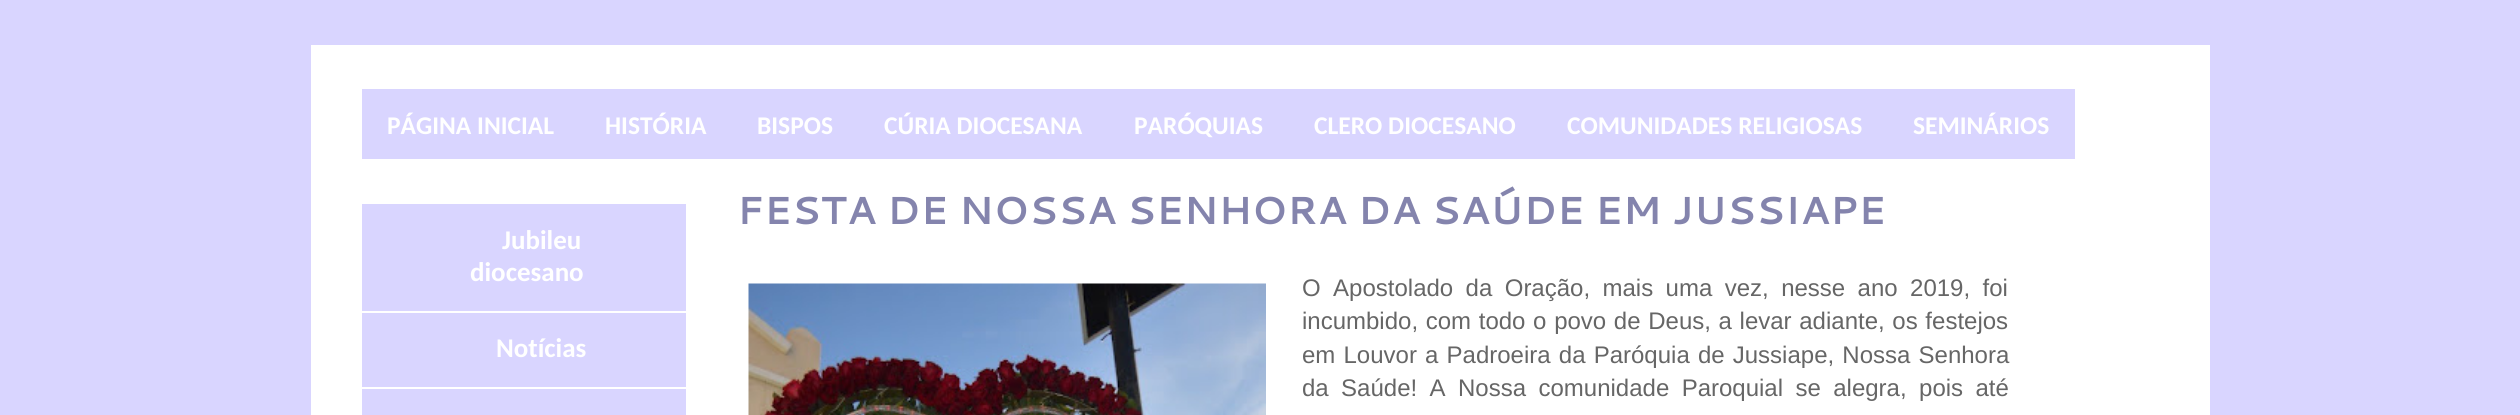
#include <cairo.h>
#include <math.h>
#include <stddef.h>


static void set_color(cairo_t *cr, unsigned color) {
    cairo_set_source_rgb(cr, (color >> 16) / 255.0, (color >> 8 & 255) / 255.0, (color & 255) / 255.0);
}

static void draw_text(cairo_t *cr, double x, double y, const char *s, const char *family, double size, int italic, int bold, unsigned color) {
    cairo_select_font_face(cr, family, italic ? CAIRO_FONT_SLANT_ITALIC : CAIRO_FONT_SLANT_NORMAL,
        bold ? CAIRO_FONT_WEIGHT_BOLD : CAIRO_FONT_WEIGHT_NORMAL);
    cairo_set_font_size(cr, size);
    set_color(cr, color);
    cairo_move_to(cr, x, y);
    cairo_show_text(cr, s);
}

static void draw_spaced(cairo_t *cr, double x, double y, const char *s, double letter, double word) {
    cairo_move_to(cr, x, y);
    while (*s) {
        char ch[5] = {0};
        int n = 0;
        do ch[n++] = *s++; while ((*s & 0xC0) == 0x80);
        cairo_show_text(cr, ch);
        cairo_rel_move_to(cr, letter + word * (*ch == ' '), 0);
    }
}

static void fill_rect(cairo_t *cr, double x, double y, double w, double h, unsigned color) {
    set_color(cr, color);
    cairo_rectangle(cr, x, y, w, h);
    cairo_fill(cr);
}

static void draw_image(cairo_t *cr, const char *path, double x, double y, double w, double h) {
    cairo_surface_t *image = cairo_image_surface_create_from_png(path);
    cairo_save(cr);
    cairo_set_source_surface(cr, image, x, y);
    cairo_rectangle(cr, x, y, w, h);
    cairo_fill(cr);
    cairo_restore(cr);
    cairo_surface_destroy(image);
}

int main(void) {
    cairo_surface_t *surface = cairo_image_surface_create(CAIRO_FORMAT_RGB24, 2520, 415);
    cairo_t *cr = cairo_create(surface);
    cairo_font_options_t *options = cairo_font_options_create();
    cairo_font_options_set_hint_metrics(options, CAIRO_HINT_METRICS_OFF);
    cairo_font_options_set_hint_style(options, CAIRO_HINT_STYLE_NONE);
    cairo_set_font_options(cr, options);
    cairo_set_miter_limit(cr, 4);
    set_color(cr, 0xD9D5FF);
    cairo_paint(cr);
    fill_rect(cr, 311, 45, 1899, 370, 0xFFFFFF);
    fill_rect(cr, 362, 89, 1713, 70, 0xD9D5FF);
    draw_text(cr, 387, 134, "PÁGINA INICIAL", "Carlito", 25.5, 0, 1, 0xFFFFFF);
    draw_text(cr, 605, 134, "HISTÓRIA", "Carlito", 25.5, 0, 1, 0xFFFFFF);
    draw_text(cr, 757, 134, "BISPOS", "Carlito", 25.5, 0, 1, 0xFFFFFF);
    draw_text(cr, 884, 134, "CÚRIA DIOCESANA", "Carlito", 25.5, 0, 1, 0xFFFFFF);
    draw_text(cr, 1134, 134, "PARÓQUIAS", "Carlito", 25.5, 0, 1, 0xFFFFFF);
    draw_text(cr, 1314, 134, "CLERO DIOCESANO", "Carlito", 25.5, 0, 1, 0xFFFFFF);
    draw_text(cr, 1567, 134, "COMUNIDADES RELIGIOSAS", "Carlito", 25.5, 0, 1, 0xFFFFFF);
    draw_text(cr, 1913, 134, "SEMINÁRIOS", "Carlito", 25.5, 0, 1, 0xFFFFFF);
    fill_rect(cr, 362, 204, 324, 211, 0xD9D5FF);
    fill_rect(cr, 362, 311, 324, 2, 0xFFFFFF);
    draw_text(cr, 502, 249, "Jubileu", "Carlito", 27, 0, 1, 0xFFFFFF);
    draw_text(cr, 470, 281, "diocesano", "Carlito", 27, 0, 1, 0xFFFFFF);
    fill_rect(cr, 362, 387, 324, 2, 0xFFFFFF);
    draw_text(cr, 496, 357, "Notícias", "Carlito", 27, 0, 1, 0xFFFFFF);
    draw_text(cr, 737, 224, "FESTA DE NOSSA SENHORA DA SAÚDE EM JUSSIAPE", "Cantarell", 39, 0, 1, 0x8484AD);
    draw_image(cr, "assets/img1.png", 748, 283, 518, 132);
    cairo_select_font_face(cr, "Liberation Sans", CAIRO_FONT_SLANT_NORMAL, CAIRO_FONT_WEIGHT_NORMAL);
    cairo_set_font_size(cr, 24);
    set_color(cr, 0x666666);
    draw_spaced(cr, 1302, 296, "O Apostolado da Oração, mais uma vez, nesse ano 2019, foi", 0, 5.75);
    draw_spaced(cr, 1302, 329, "incumbido, com todo o povo de Deus, a levar adiante, os festejos", 0, 1);
    draw_spaced(cr, 1302, 363, "em Louvor a Padroeira da Paróquia de Jussiape, Nossa Senhora", 0, 1.5);
    draw_spaced(cr, 1302, 396, "da Saúde! A Nossa comunidade Paroquial se alegra, pois até", 0, 5.75);
    cairo_surface_write_to_png(surface, "output.png");
    cairo_font_options_destroy(options);
    cairo_destroy(cr);
    cairo_surface_destroy(surface);
    return 0;
}
